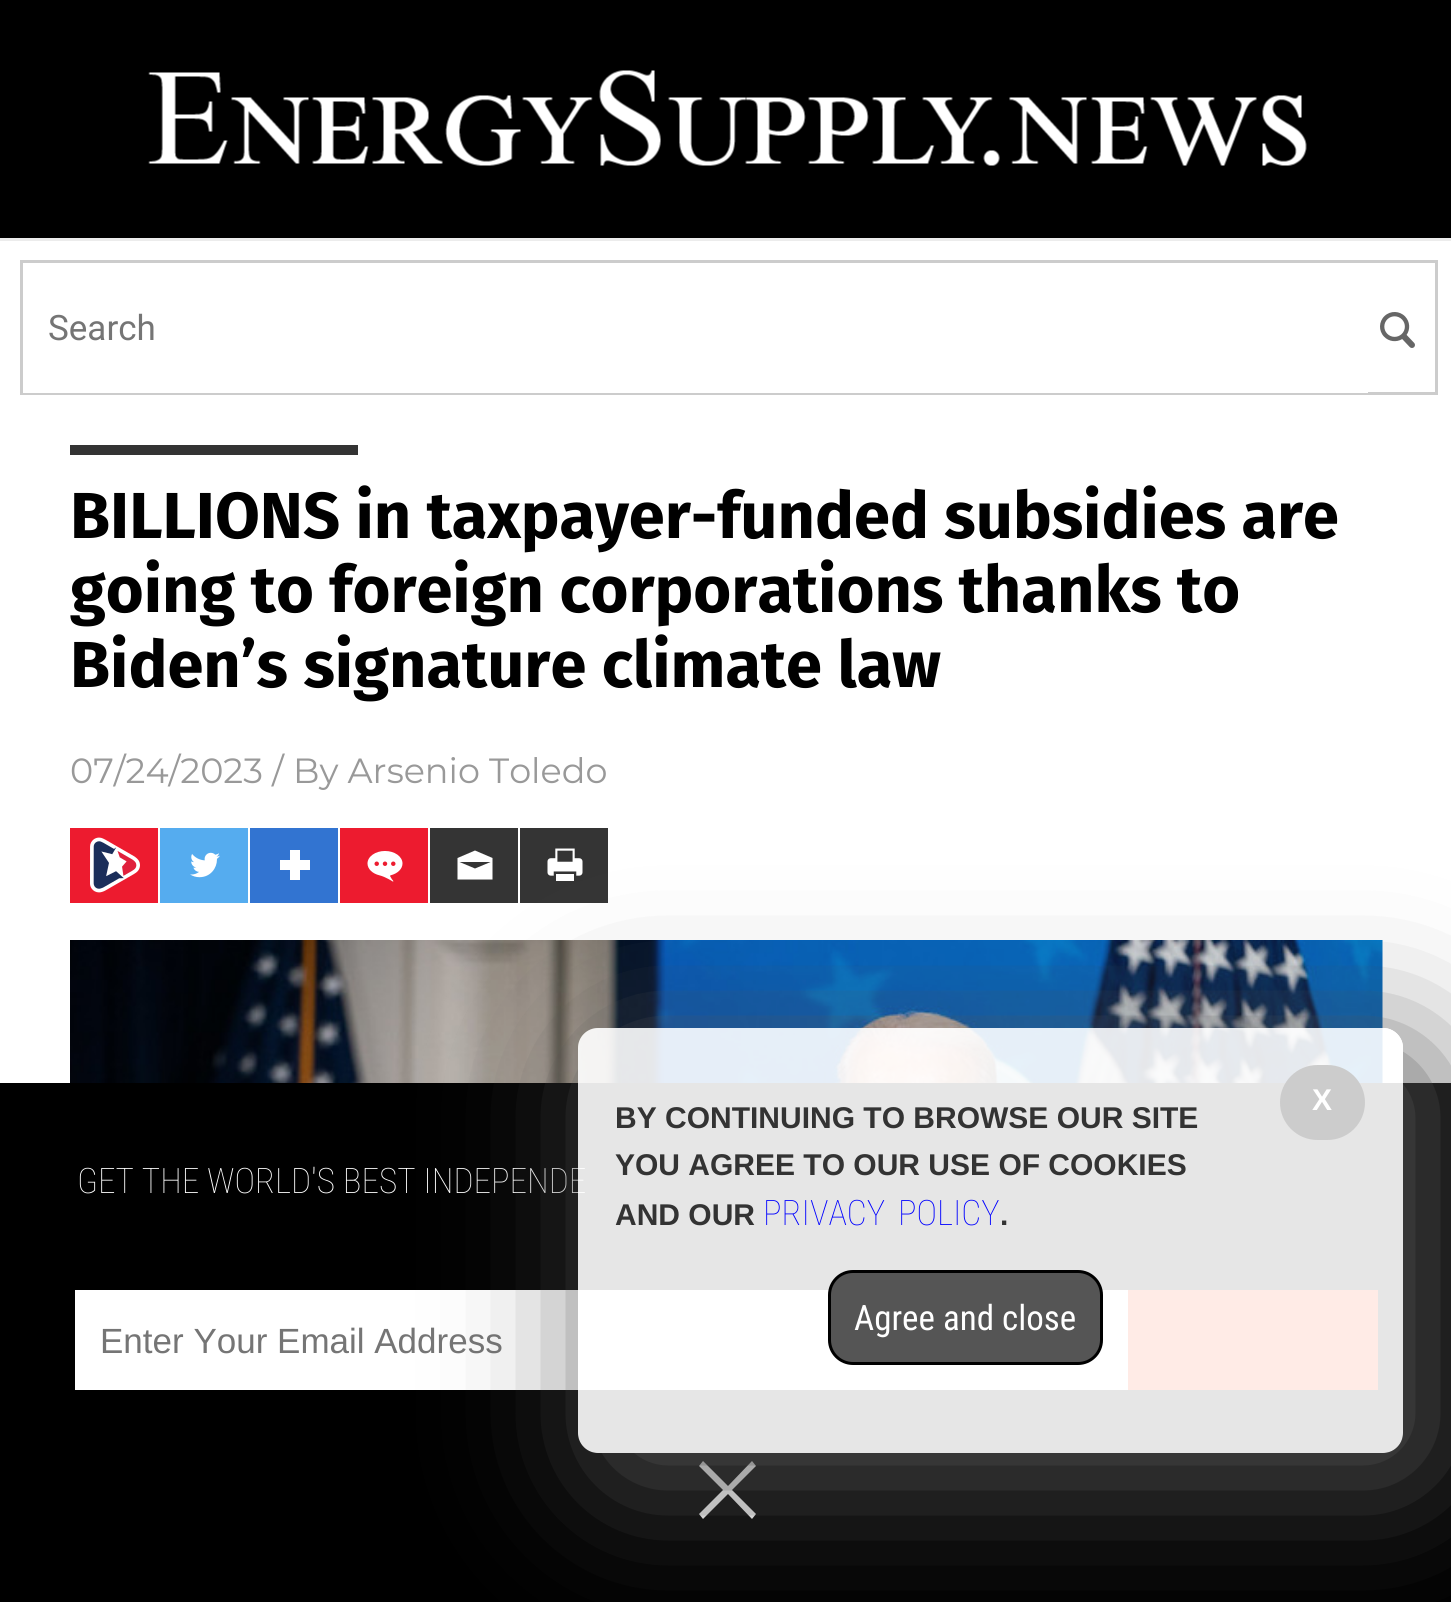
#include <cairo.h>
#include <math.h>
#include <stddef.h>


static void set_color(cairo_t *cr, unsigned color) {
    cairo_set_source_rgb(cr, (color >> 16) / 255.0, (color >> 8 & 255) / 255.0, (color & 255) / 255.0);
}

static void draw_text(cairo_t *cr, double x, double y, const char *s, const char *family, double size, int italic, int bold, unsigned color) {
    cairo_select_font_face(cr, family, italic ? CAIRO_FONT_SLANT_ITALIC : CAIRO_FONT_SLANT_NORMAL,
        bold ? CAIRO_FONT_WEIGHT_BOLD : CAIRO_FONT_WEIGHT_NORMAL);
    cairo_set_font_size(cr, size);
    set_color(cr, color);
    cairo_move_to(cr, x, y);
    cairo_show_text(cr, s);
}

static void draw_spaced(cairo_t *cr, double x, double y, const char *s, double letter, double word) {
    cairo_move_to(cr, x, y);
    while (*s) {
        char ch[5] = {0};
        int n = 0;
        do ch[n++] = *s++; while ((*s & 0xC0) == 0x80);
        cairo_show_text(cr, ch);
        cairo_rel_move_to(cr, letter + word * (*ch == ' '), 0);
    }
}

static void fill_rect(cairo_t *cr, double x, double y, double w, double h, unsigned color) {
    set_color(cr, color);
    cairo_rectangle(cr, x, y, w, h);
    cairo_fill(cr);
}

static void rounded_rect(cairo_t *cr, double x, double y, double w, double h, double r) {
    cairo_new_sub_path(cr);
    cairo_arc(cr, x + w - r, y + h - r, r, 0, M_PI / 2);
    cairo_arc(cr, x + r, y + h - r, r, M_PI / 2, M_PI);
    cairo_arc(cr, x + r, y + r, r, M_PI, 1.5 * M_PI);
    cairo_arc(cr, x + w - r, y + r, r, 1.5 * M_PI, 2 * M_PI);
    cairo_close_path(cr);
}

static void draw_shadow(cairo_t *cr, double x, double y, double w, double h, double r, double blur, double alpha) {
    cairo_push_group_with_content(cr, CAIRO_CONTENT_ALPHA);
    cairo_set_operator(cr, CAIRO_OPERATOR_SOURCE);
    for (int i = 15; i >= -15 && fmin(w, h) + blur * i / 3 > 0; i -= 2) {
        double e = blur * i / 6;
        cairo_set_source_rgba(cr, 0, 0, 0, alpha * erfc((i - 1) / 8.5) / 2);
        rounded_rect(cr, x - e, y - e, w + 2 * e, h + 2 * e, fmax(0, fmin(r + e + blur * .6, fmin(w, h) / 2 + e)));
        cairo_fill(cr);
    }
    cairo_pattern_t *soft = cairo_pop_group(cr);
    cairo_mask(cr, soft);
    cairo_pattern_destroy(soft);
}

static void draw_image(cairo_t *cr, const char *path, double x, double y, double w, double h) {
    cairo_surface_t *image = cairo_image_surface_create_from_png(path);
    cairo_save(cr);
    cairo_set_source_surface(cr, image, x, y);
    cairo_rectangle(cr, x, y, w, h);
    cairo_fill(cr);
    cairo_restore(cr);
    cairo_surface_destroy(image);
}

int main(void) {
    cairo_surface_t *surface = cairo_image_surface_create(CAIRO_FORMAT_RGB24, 1451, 1602);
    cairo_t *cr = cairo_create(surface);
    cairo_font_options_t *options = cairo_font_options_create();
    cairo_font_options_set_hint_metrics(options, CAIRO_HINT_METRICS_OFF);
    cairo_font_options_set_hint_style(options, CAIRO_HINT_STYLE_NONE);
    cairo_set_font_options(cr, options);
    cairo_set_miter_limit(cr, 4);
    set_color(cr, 0x000000);
    cairo_paint(cr);
    draw_image(cr, "assets/img1.png", 148, 70, 1159, 96);
    fill_rect(cr, 0, 241, 1451, 842, 0xFFFFFF);
    fill_rect(cr, 0, 238, 1451, 3, 0xECECEC);
    cairo_rectangle(cr, 21.5, 261.5, 1415, 132);
    set_color(cr, 0xCCCCCC);
    cairo_set_line_width(cr, 3);
    cairo_stroke(cr);
    fill_rect(cr, 23, 392, 1345, 1, 0xFFFFFF);
    draw_text(cr, 48, 340, "Search", "Roboto", 35, 0, 0, 0x757575);
    draw_image(cr, "assets/img2.png", 1380, 312, 35, 36);
    fill_rect(cr, 70, 445, 288, 10, 0x333333);
    draw_text(cr, 70, 538, "BILLIONS in taxpayer-funded subsidies are", "Fira Sans", 65, 0, 1, 0x000000);
    draw_text(cr, 70, 612, "going to foreign corporations thanks to", "Fira Sans", 65, 0, 1, 0x000000);
    draw_text(cr, 70, 687, "Biden’s signature climate law", "Fira Sans", 65, 0, 1, 0x000000);
    draw_text(cr, 70, 783, "07/24/2023 / By Arsenio Toledo", "Montserrat", 35, 0, 0, 0x999999);
    fill_rect(cr, 70, 828, 88, 75, 0xED1B2F);
    draw_image(cr, "assets/img3.png", 90, 837, 50, 56);
    fill_rect(cr, 160, 828, 88, 75, 0x55ACEF);
    draw_image(cr, "assets/img4.png", 190, 852, 30, 26);
    fill_rect(cr, 250, 828, 88, 75, 0x3274D1);
    draw_image(cr, "assets/img5.png", 280, 850, 30, 30);
    fill_rect(cr, 340, 828, 88, 75, 0xED1B2F);
    draw_image(cr, "assets/img6.png", 367, 851, 36, 31);
    fill_rect(cr, 430, 828, 88, 75, 0x343434);
    set_color(cr, 0xFFFFFF);
    cairo_new_path(cr);
    cairo_move_to(cr, 475, 850.5);
    cairo_line_to(cr, 457.5, 858);
    cairo_line_to(cr, 457.5, 879.5);
    cairo_line_to(cr, 492.5, 879.5);
    cairo_line_to(cr, 492.5, 858);
    cairo_close_path(cr);
    cairo_move_to(cr, 475, 868.5);
    cairo_line_to(cr, 459.5, 862);
    cairo_line_to(cr, 490.5, 862);
    cairo_close_path(cr);
    cairo_fill(cr);
    fill_rect(cr, 520, 828, 88, 75, 0x343434);
    draw_image(cr, "assets/img7.png", 547, 848, 36, 33);
    draw_image(cr, "assets/img8.png", 70, 940, 1313, 143);
    draw_text(cr, 77, 1193, "GET THE WORLD'S BEST INDEPENDE", "Roboto Condensed Thin", 35, 0, 0, 0xFFFFFF);
    fill_rect(cr, 75, 1290, 1053, 100, 0xFFFFFF);
    draw_text(cr, 100, 1353, "Enter Your Email Address", "Liberation Sans", 35, 0, 0, 0x757575);
    fill_rect(cr, 1128, 1290, 250, 100, 0xFF3300);
    set_color(cr, 0xFFFFFF);
    cairo_new_path(cr);
    cairo_move_to(cr, 756, 1466);
    cairo_line_to(cr, 752, 1461);
    cairo_line_to(cr, 728, 1486);
    cairo_line_to(cr, 703, 1461);
    cairo_line_to(cr, 699, 1466);
    cairo_line_to(cr, 723, 1490);
    cairo_line_to(cr, 699, 1514);
    cairo_line_to(cr, 703, 1519);
    cairo_line_to(cr, 728, 1494);
    cairo_line_to(cr, 752, 1519);
    cairo_line_to(cr, 756, 1514);
    cairo_line_to(cr, 732, 1490);
    cairo_close_path(cr);
    cairo_fill(cr);
    cairo_save(cr);
    cairo_set_fill_rule(cr, CAIRO_FILL_RULE_EVEN_ODD);
    cairo_new_path(cr);
    cairo_move_to(cr, 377, 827);
    cairo_line_to(cr, 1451, 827);
    cairo_line_to(cr, 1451, 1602);
    cairo_line_to(cr, 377, 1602);
    cairo_close_path(cr);
    cairo_move_to(cr, 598, 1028);
    cairo_line_to(cr, 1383, 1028);
    cairo_curve_to(cr, 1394, 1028, 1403, 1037, 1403, 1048);
    cairo_line_to(cr, 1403, 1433);
    cairo_curve_to(cr, 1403, 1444, 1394, 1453, 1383, 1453);
    cairo_line_to(cr, 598, 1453);
    cairo_curve_to(cr, 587, 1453, 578, 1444, 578, 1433);
    cairo_line_to(cr, 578, 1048);
    cairo_curve_to(cr, 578, 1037, 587, 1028, 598, 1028);
    cairo_close_path(cr);
    cairo_clip(cr);
    set_color(cr, 0x555555);
    draw_shadow(cr, 603, 1053, 825, 425, 20, 75, 1);
    cairo_restore(cr);
    cairo_set_source_rgba(cr, 1, 1, 1, 0.9);
    rounded_rect(cr, 578, 1028, 825, 425, 20);
    cairo_fill(cr);
    set_color(cr, 0xCCCCCC);
    rounded_rect(cr, 1280, 1065, 85, 75, 37.5);
    cairo_fill(cr);
    draw_text(cr, 1312, 1110, "X", "Liberation Sans", 30, 0, 1, 0xFFFFFF);
    draw_text(cr, 615, 1128, "BY CONTINUING TO BROWSE OUR SITE", "Liberation Sans", 30, 0, 1, 0x333333);
    draw_text(cr, 615, 1175, "YOU AGREE TO OUR USE OF COOKIES", "Liberation Sans", 30, 0, 1, 0x333333);
    draw_text(cr, 615, 1225, "AND OUR", "Liberation Sans", 30, 0, 1, 0x333333);
    cairo_select_font_face(cr, "Roboto Condensed Thin", CAIRO_FONT_SLANT_NORMAL, CAIRO_FONT_WEIGHT_NORMAL);
    cairo_set_font_size(cr, 35);
    set_color(cr, 0x0000FF);
    draw_spaced(cr, 763, 1225, "PRIVACY POLICY", 0, 5);
    draw_text(cr, 1000, 1225, ".", "Liberation Sans", 30, 0, 1, 0x333333);
    set_color(cr, 0x555555);
    rounded_rect(cr, 829.5, 1271.5, 272, 92, 23.5);
    cairo_fill_preserve(cr);
    set_color(cr, 0x000000);
    cairo_stroke(cr);
    draw_text(cr, 854, 1330, "Agree and close", "Roboto Condensed", 35, 0, 0, 0xFFFFFF);
    cairo_surface_write_to_png(surface, "output.png");
    cairo_font_options_destroy(options);
    cairo_destroy(cr);
    cairo_surface_destroy(surface);
    return 0;
}
